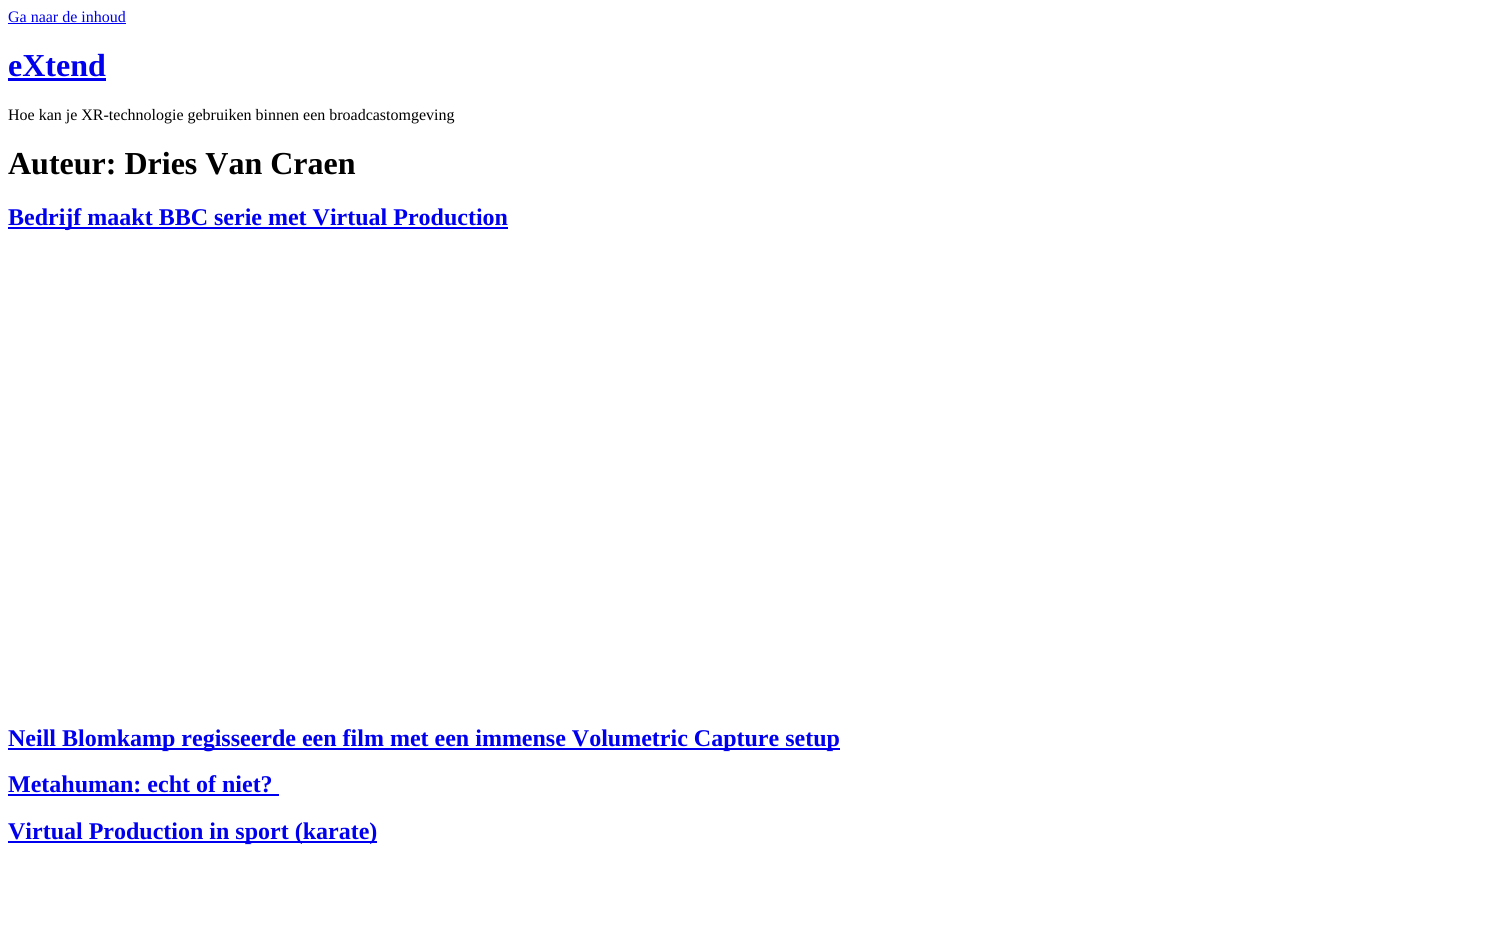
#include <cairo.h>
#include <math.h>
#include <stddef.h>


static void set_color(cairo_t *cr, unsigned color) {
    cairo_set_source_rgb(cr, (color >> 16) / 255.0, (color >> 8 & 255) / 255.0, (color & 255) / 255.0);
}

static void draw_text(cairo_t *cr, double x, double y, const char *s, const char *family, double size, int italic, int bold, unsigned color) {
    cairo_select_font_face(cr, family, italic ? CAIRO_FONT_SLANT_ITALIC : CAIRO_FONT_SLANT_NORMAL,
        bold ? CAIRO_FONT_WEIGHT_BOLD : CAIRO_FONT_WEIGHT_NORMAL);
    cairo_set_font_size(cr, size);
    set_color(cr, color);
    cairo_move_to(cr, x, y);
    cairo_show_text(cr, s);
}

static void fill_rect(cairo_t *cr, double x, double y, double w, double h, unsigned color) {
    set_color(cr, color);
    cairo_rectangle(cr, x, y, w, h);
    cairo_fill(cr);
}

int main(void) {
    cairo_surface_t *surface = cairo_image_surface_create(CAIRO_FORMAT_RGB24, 1503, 942);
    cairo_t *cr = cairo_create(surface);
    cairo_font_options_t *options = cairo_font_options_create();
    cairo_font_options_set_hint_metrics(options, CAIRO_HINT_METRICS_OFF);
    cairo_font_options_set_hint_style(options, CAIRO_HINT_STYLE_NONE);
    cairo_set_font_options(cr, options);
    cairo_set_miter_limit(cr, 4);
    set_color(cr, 0xFFFFFF);
    cairo_paint(cr);
    draw_text(cr, 8, 22, "Ga naar de inhoud", "Liberation Serif", 16, 0, 0, 0x0000EE);
    fill_rect(cr, 8, 23, 118, 1, 0x0000EE);
    draw_text(cr, 8, 76, "eXtend", "Liberation Serif", 32, 0, 1, 0x0000EE);
    fill_rect(cr, 8, 78, 98, 3, 0x0000EE);
    draw_text(cr, 8, 120, "Hoe kan je XR-technologie gebruiken binnen een broadcastomgeving", "Liberation Serif", 16, 0, 0, 0x000000);
    draw_text(cr, 8, 174, "Auteur: Dries Van Craen", "Liberation Serif", 32, 0, 1, 0x000000);
    fill_rect(cr, 8, 227, 500, 2, 0x0000EE);
    draw_text(cr, 8, 225, "Bedrijf maakt BBC serie met Virtual Production", "Liberation Serif", 24, 0, 1, 0x0000EE);
    fill_rect(cr, 8, 748, 832, 2, 0x0000EE);
    draw_text(cr, 8, 746, "Neill Blomkamp regisseerde een film met een immense Volumetric Capture setup", "Liberation Serif", 24, 0, 1, 0x0000EE);
    draw_text(cr, 8, 792, "Metahuman: echt of niet?", "Liberation Serif", 24, 0, 1, 0x0000EE);
    fill_rect(cr, 8, 794, 271, 2, 0x0000EE);
    fill_rect(cr, 8, 841, 369, 2, 0x0000EE);
    draw_text(cr, 8, 839, "Virtual Production in sport (karate)", "Liberation Serif", 24, 0, 1, 0x0000EE);
    cairo_surface_write_to_png(surface, "output.png");
    cairo_font_options_destroy(options);
    cairo_destroy(cr);
    cairo_surface_destroy(surface);
    return 0;
}
